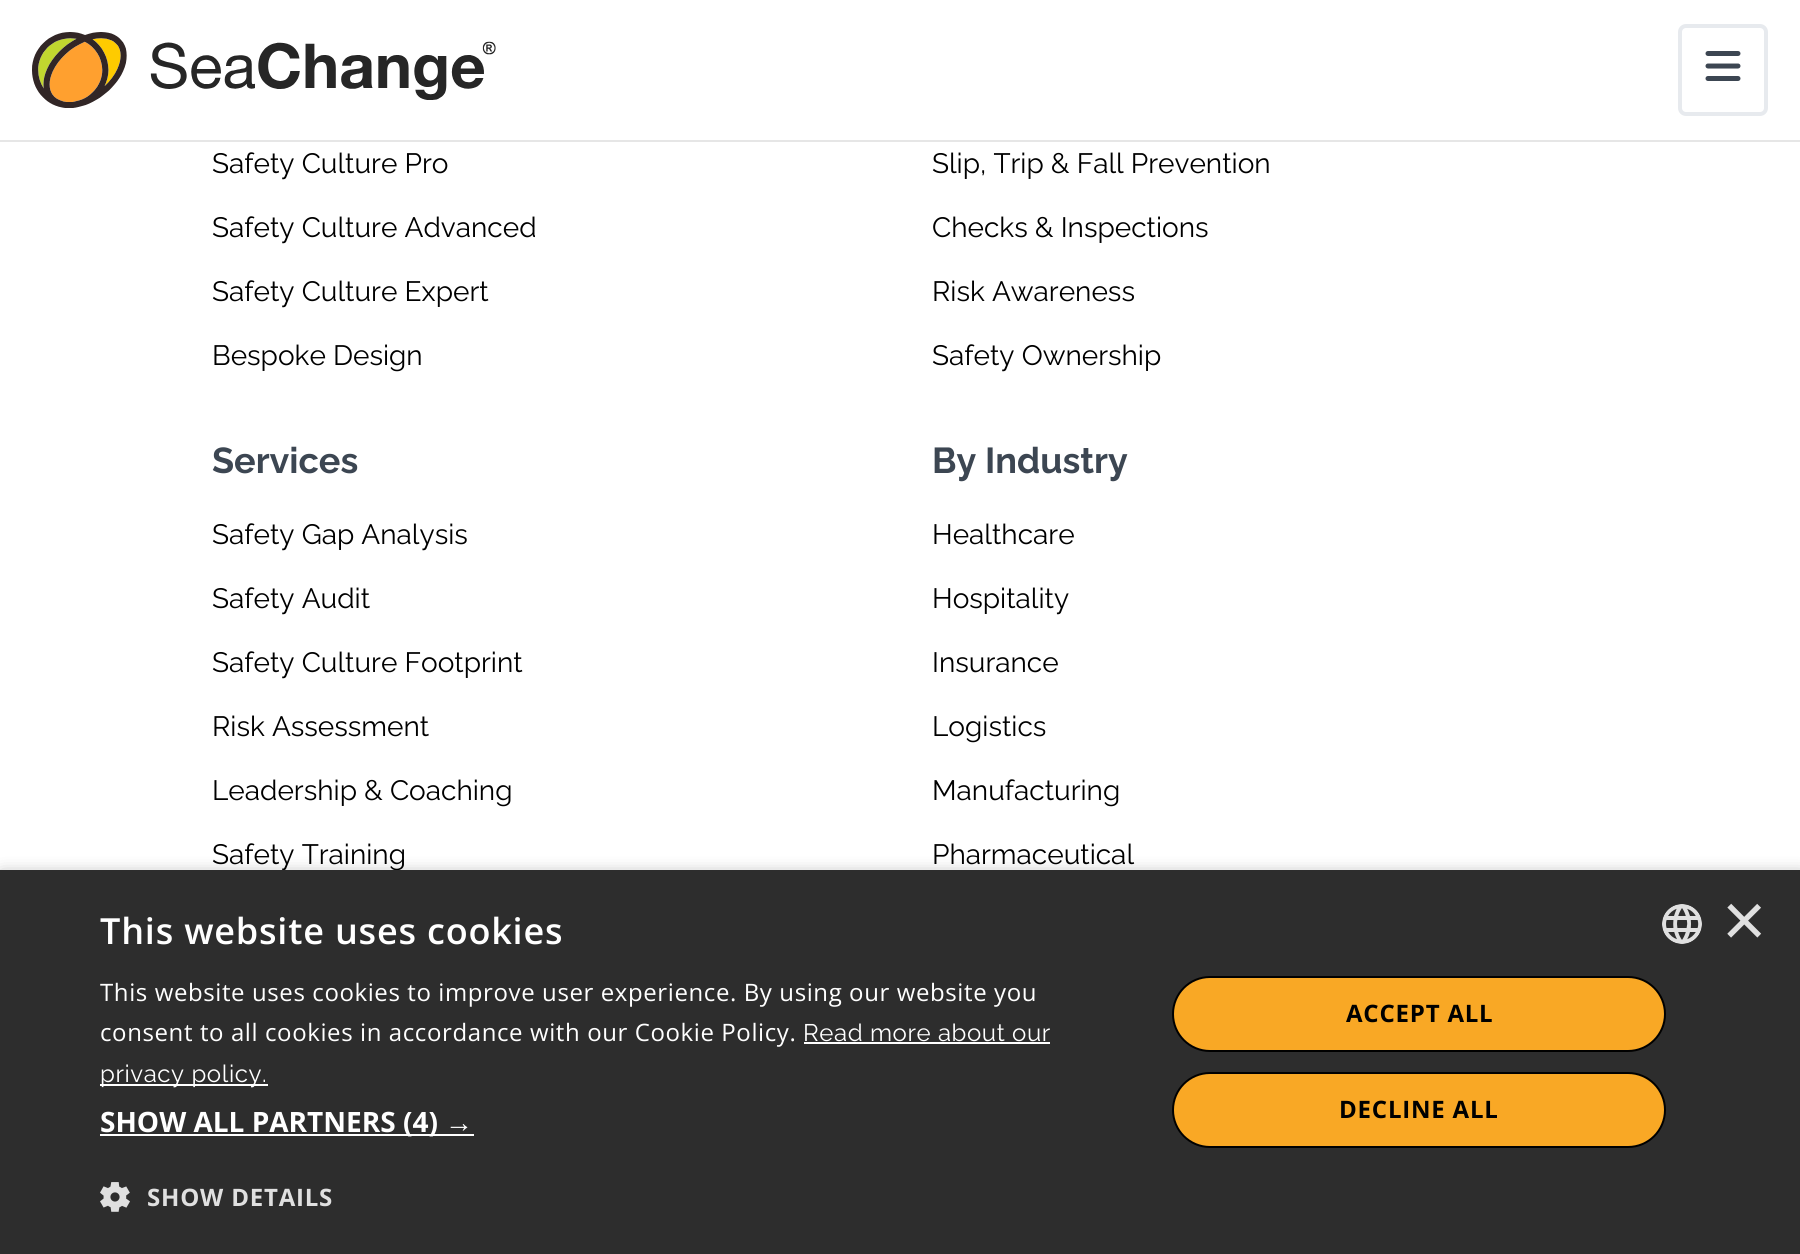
#include <cairo.h>
#include <math.h>
#include <stddef.h>


static void set_color(cairo_t *cr, unsigned color) {
    cairo_set_source_rgb(cr, (color >> 16) / 255.0, (color >> 8 & 255) / 255.0, (color & 255) / 255.0);
}

static void draw_text(cairo_t *cr, double x, double y, const char *s, const char *family, double size, int italic, int bold, unsigned color) {
    cairo_select_font_face(cr, family, italic ? CAIRO_FONT_SLANT_ITALIC : CAIRO_FONT_SLANT_NORMAL,
        bold ? CAIRO_FONT_WEIGHT_BOLD : CAIRO_FONT_WEIGHT_NORMAL);
    cairo_set_font_size(cr, size);
    set_color(cr, color);
    cairo_move_to(cr, x, y);
    cairo_show_text(cr, s);
}

static void draw_spaced(cairo_t *cr, double x, double y, const char *s, double letter, double word) {
    cairo_move_to(cr, x, y);
    while (*s) {
        char ch[5] = {0};
        int n = 0;
        do ch[n++] = *s++; while ((*s & 0xC0) == 0x80);
        cairo_show_text(cr, ch);
        cairo_rel_move_to(cr, letter + word * (*ch == ' '), 0);
    }
}

static void fill_rect(cairo_t *cr, double x, double y, double w, double h, unsigned color) {
    set_color(cr, color);
    cairo_rectangle(cr, x, y, w, h);
    cairo_fill(cr);
}

static void rounded_rect(cairo_t *cr, double x, double y, double w, double h, double r) {
    cairo_new_sub_path(cr);
    cairo_arc(cr, x + w - r, y + h - r, r, 0, M_PI / 2);
    cairo_arc(cr, x + r, y + h - r, r, M_PI / 2, M_PI);
    cairo_arc(cr, x + r, y + r, r, M_PI, 1.5 * M_PI);
    cairo_arc(cr, x + w - r, y + r, r, 1.5 * M_PI, 2 * M_PI);
    cairo_close_path(cr);
}

static void draw_shadow(cairo_t *cr, double x, double y, double w, double h, double r, double blur, double alpha) {
    cairo_push_group_with_content(cr, CAIRO_CONTENT_ALPHA);
    cairo_set_operator(cr, CAIRO_OPERATOR_SOURCE);
    for (int i = 15; i >= -15 && fmin(w, h) + blur * i / 3 > 0; i -= 2) {
        double e = blur * i / 6;
        cairo_set_source_rgba(cr, 0, 0, 0, alpha * erfc((i - 1) / 8.5) / 2);
        rounded_rect(cr, x - e, y - e, w + 2 * e, h + 2 * e, fmax(0, fmin(r + e + blur * .6, fmin(w, h) / 2 + e)));
        cairo_fill(cr);
    }
    cairo_pattern_t *soft = cairo_pop_group(cr);
    cairo_mask(cr, soft);
    cairo_pattern_destroy(soft);
}

static void draw_image(cairo_t *cr, const char *path, double x, double y, double w, double h) {
    cairo_surface_t *image = cairo_image_surface_create_from_png(path);
    cairo_save(cr);
    cairo_set_source_surface(cr, image, x, y);
    cairo_rectangle(cr, x, y, w, h);
    cairo_fill(cr);
    cairo_restore(cr);
    cairo_surface_destroy(image);
}

int main(void) {
    cairo_surface_t *surface = cairo_image_surface_create(CAIRO_FORMAT_RGB24, 1800, 1254);
    cairo_t *cr = cairo_create(surface);
    cairo_font_options_t *options = cairo_font_options_create();
    cairo_font_options_set_hint_metrics(options, CAIRO_HINT_METRICS_OFF);
    cairo_font_options_set_hint_style(options, CAIRO_HINT_STYLE_NONE);
    cairo_set_font_options(cr, options);
    cairo_set_miter_limit(cr, 4);
    set_color(cr, 0xFFFFFF);
    cairo_paint(cr);
    fill_rect(cr, 0, 140, 1800, 2, 0xE6E6E6);
    draw_image(cr, "assets/img1.png", 32, 32, 464, 76);
    rounded_rect(cr, 1680, 26, 86, 88, 6);
    set_color(cr, 0xE7EAEE);
    cairo_set_line_width(cr, 4);
    cairo_stroke(cr);
    draw_image(cr, "assets/img2.png", 1705, 51, 36, 30);
    draw_text(cr, 212, 173, "Safety Culture Pro", "Raleway", 28, 0, 0, 0x000000);
    draw_text(cr, 212, 237, "Safety Culture Advanced", "Raleway", 28, 0, 0, 0x000000);
    draw_text(cr, 212, 301, "Safety Culture Expert", "Raleway", 28, 0, 0, 0x000000);
    draw_text(cr, 212, 365, "Bespoke Design", "Raleway", 28, 0, 0, 0x000000);
    draw_text(cr, 932, 173, "Slip, Trip & Fall Prevention", "Raleway", 28, 0, 0, 0x000000);
    draw_text(cr, 932, 237, "Checks & Inspections", "Raleway", 28, 0, 0, 0x000000);
    draw_text(cr, 932, 301, "Risk Awareness", "Raleway", 28, 0, 0, 0x000000);
    draw_text(cr, 932, 365, "Safety Ownership", "Raleway", 28, 0, 0, 0x000000);
    draw_text(cr, 212, 473, "Services", "Raleway", 36, 0, 1, 0x3C4652);
    draw_text(cr, 212, 544, "Safety Gap Analysis", "Raleway", 28, 0, 0, 0x000000);
    draw_text(cr, 212, 608, "Safety Audit", "Raleway", 28, 0, 0, 0x000000);
    draw_text(cr, 212, 672, "Safety Culture Footprint", "Raleway", 28, 0, 0, 0x000000);
    draw_text(cr, 212, 736, "Risk Assessment", "Raleway", 28, 0, 0, 0x000000);
    draw_text(cr, 212, 800, "Leadership & Coaching", "Raleway", 28, 0, 0, 0x000000);
    draw_text(cr, 212, 864, "Safety Training", "Raleway", 28, 0, 0, 0x000000);
    draw_text(cr, 932, 473, "By Industry", "Raleway", 36, 0, 1, 0x3C4652);
    draw_text(cr, 932, 544, "Healthcare", "Raleway", 28, 0, 0, 0x000000);
    draw_text(cr, 932, 608, "Hospitality", "Raleway", 28, 0, 0, 0x000000);
    draw_text(cr, 932, 672, "Insurance", "Raleway", 28, 0, 0, 0x000000);
    draw_text(cr, 932, 736, "Logistics", "Raleway", 28, 0, 0, 0x000000);
    draw_text(cr, 932, 800, "Manufacturing", "Raleway", 28, 0, 0, 0x000000);
    draw_text(cr, 932, 864, "Pharmaceutical", "Raleway", 28, 0, 0, 0x000000);
    set_color(cr, 0x000000);
    draw_shadow(cr, 2, 874, 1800, 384, 0, 8, 0.35);
    fill_rect(cr, 0, 870, 1800, 384, 0x2D2D2D);
    cairo_select_font_face(cr, "Open Sans SemiBold", CAIRO_FONT_SLANT_NORMAL, CAIRO_FONT_WEIGHT_NORMAL);
    cairo_set_font_size(cr, 36);
    set_color(cr, 0xFFFFFF);
    draw_spaced(cr, 100, 944, "This website uses cookies", 0.8, 0);
    cairo_select_font_face(cr, "Open Sans", CAIRO_FONT_SLANT_NORMAL, CAIRO_FONT_WEIGHT_NORMAL);
    cairo_set_font_size(cr, 24);
    draw_spaced(cr, 100, 1001, "This website uses cookies to improve user experience. By using our website you", 0.6, 0);
    draw_spaced(cr, 100, 1041, "consent to all cookies in accordance with our Cookie Policy.", 0.6, 0);
    cairo_select_font_face(cr, "Raleway", CAIRO_FONT_SLANT_NORMAL, CAIRO_FONT_WEIGHT_NORMAL);
    draw_spaced(cr, 803, 1041, "Read more about our", 0.6, 0);
    fill_rect(cr, 804, 1042, 246, 2, 0xFFFFFF);
    fill_rect(cr, 100, 1084, 168, 2, 0xFFFFFF);
    draw_spaced(cr, 100, 1082, "privacy policy.", 0.6, 0);
    fill_rect(cr, 100, 1134, 374, 2, 0xFFFFFF);
    draw_text(cr, 100, 1132, "SHOW ALL PARTNERS (4)", "Open Sans", 28, 0, 1, 0xFFFFFF);
    draw_text(cr, 445, 1132, "→", "Liberation Sans", 28, 0, 1, 0xFFFFFF);
    draw_image(cr, "assets/img3.png", 100, 1182, 30, 30);
    cairo_select_font_face(cr, "Open Sans", CAIRO_FONT_SLANT_NORMAL, CAIRO_FONT_WEIGHT_BOLD);
    cairo_set_font_size(cr, 24);
    set_color(cr, 0xE0E0E0);
    draw_spaced(cr, 147, 1206, "SHOW DETAILS", 0.8, 0);
    set_color(cr, 0xF9A825);
    rounded_rect(cr, 1173, 977, 492, 74, 37);
    cairo_fill_preserve(cr);
    set_color(cr, 0x000000);
    cairo_set_line_width(cr, 2);
    cairo_stroke(cr);
    draw_spaced(cr, 1346, 1022, "ACCEPT ALL", 0.8, 0);
    set_color(cr, 0xF9A825);
    rounded_rect(cr, 1173, 1073, 492, 74, 37);
    cairo_fill_preserve(cr);
    set_color(cr, 0x000000);
    cairo_stroke(cr);
    draw_spaced(cr, 1339, 1118, "DECLINE ALL", 0.8, 0);
    draw_image(cr, "assets/img4.png", 1662, 904, 40, 40);
    draw_text(cr, 1722, 946, "×", "Liberation Sans", 76, 0, 0, 0xE0E0E0);
    cairo_surface_write_to_png(surface, "output.png");
    cairo_font_options_destroy(options);
    cairo_destroy(cr);
    cairo_surface_destroy(surface);
    return 0;
}
